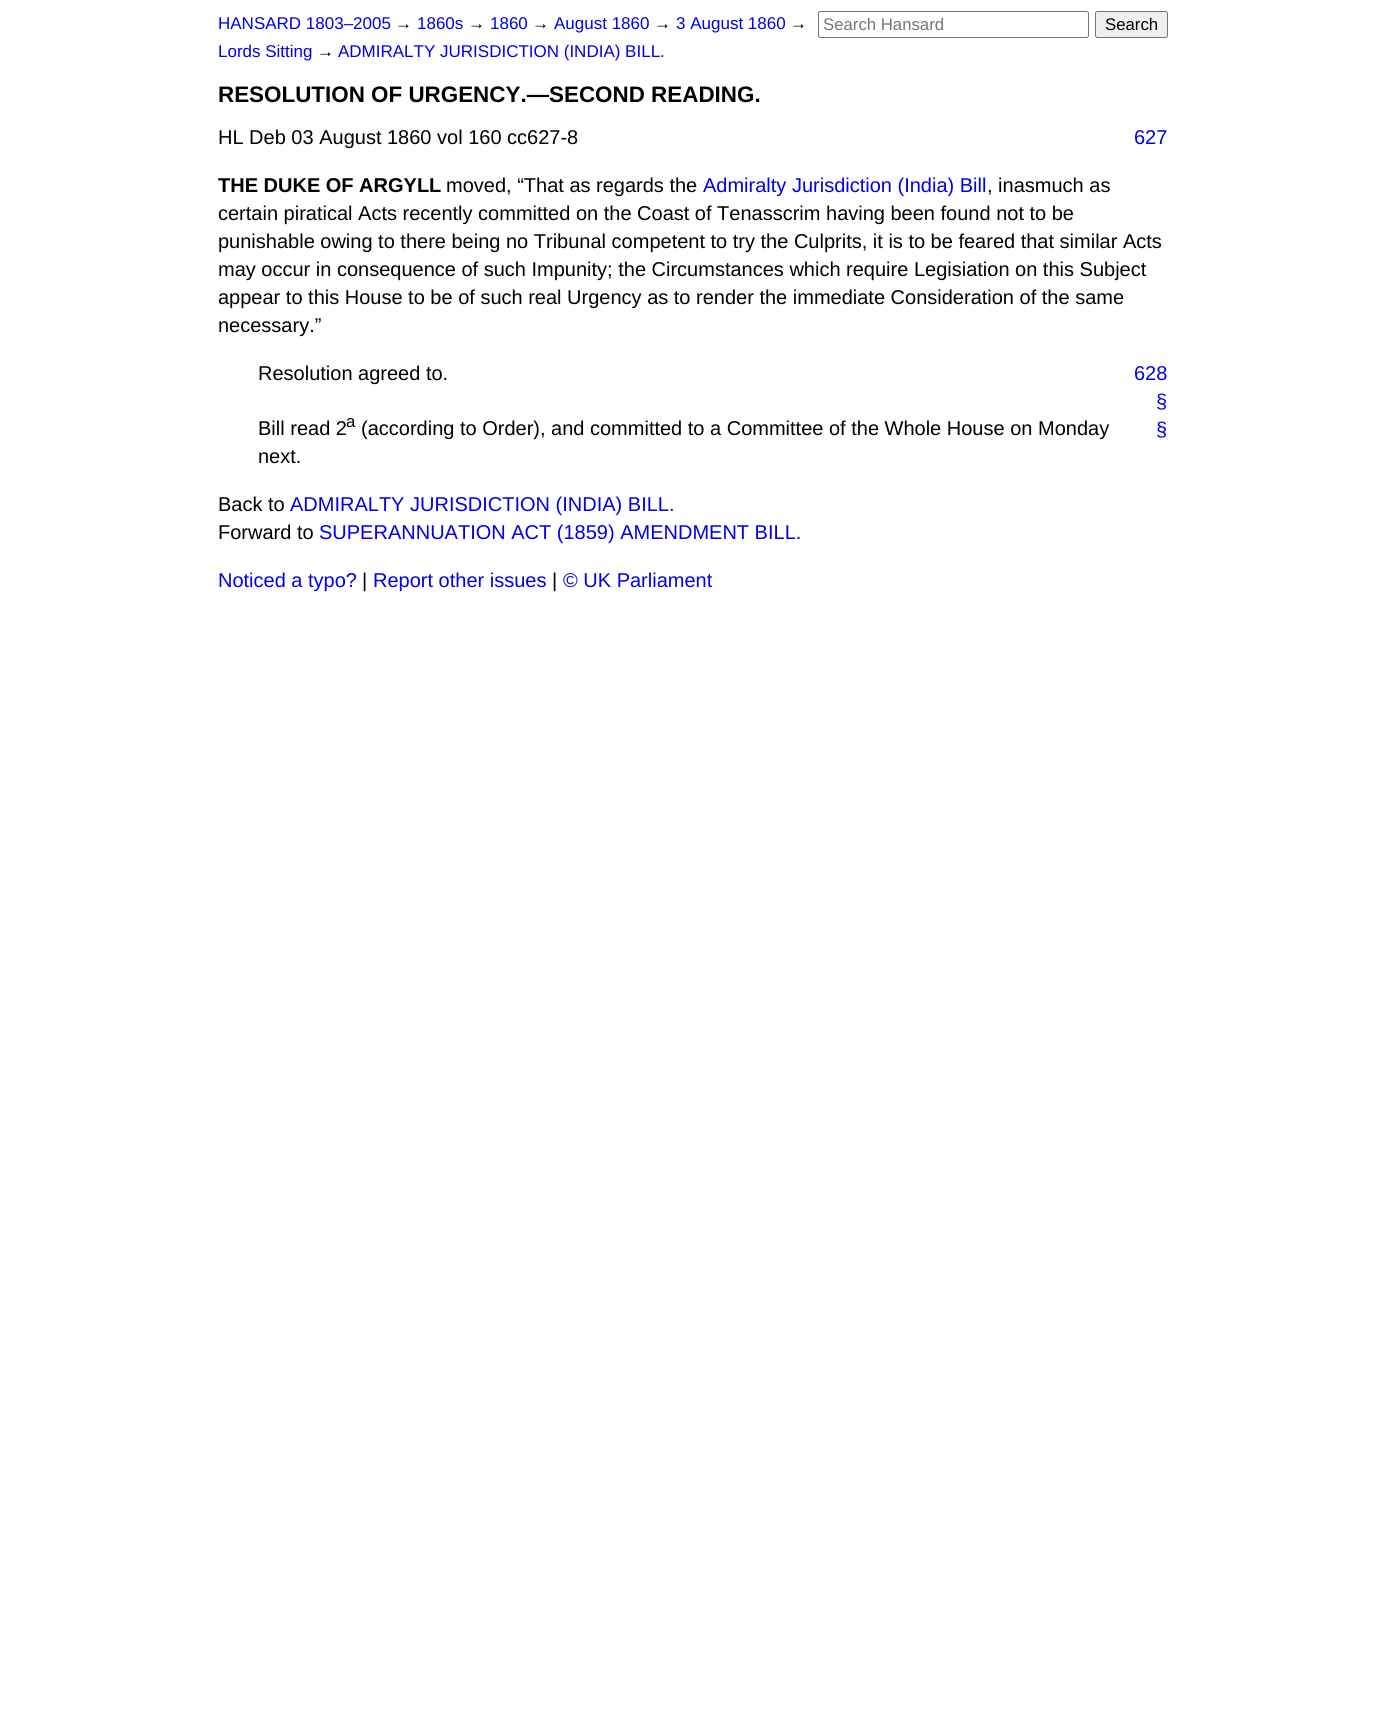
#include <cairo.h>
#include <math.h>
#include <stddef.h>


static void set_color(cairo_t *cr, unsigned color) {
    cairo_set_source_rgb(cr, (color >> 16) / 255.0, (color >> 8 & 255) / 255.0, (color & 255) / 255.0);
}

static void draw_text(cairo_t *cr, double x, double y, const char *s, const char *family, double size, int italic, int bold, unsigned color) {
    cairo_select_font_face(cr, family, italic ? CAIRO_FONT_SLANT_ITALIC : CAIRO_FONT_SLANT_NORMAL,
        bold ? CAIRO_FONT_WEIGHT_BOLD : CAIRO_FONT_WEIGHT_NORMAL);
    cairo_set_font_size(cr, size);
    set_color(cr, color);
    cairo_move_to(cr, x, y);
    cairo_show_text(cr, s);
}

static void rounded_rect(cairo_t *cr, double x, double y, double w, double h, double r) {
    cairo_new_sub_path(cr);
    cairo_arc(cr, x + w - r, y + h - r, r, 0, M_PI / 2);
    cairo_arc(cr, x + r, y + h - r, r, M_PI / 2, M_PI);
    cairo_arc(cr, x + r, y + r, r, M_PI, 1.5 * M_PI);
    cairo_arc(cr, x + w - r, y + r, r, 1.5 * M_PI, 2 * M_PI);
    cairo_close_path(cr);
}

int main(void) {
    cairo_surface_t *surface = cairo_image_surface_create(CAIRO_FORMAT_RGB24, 1385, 1734);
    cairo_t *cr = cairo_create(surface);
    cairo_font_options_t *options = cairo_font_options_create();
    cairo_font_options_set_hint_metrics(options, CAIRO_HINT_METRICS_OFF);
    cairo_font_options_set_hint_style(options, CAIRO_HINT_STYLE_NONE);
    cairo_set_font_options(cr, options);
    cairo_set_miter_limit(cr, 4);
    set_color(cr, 0xFFFFFF);
    cairo_paint(cr);
    draw_text(cr, 218, 29, "HANSARD 1803–2005", "Liberation Sans", 17, 0, 0, 0x0000EE);
    draw_text(cr, 395, 29, "→", "Liberation Sans", 17, 0, 0, 0x000000);
    draw_text(cr, 417, 29, "1860s", "Liberation Sans", 17, 0, 0, 0x0000EE);
    draw_text(cr, 468, 29, "→", "Liberation Sans", 17, 0, 0, 0x000000);
    draw_text(cr, 490, 29, "1860", "Liberation Sans", 17, 0, 0, 0x0000EE);
    draw_text(cr, 532, 29, "→", "Liberation Sans", 17, 0, 0, 0x000000);
    draw_text(cr, 554, 29, "August 1860", "Liberation Sans", 17, 0, 0, 0x0000EE);
    draw_text(cr, 654, 29, "→", "Liberation Sans", 17, 0, 0, 0x000000);
    draw_text(cr, 676, 29, "3 August 1860", "Liberation Sans", 17, 0, 0, 0x0000EE);
    draw_text(cr, 790, 29, "→", "Liberation Sans", 17, 0, 0, 0x000000);
    draw_text(cr, 218, 57, "Lords Sitting", "Liberation Sans", 17, 0, 0, 0x0000EE);
    draw_text(cr, 317, 57, "→", "Liberation Sans", 17, 0, 0, 0x000000);
    draw_text(cr, 338, 57, "ADMIRALTY JURISDICTION (INDIA) BILL.", "Liberation Sans", 17, 0, 0, 0x0000EE);
    rounded_rect(cr, 818.5, 11.5, 270, 26, 2);
    set_color(cr, 0x767676);
    cairo_set_line_width(cr, 1);
    cairo_stroke(cr);
    draw_text(cr, 823, 30, "Search Hansard", "Liberation Sans", 16.75, 0, 0, 0x757575);
    set_color(cr, 0xEFEFEF);
    rounded_rect(cr, 1095.5, 11.5, 72, 26, 2);
    cairo_fill_preserve(cr);
    set_color(cr, 0x767676);
    cairo_stroke(cr);
    draw_text(cr, 1105, 30, "Search", "Liberation Sans", 16.75, 0, 0, 0x000000);
    draw_text(cr, 218, 102, "RESOLUTION OF URGENCY.—SECOND READING.", "Liberation Sans", 22.4, 0, 1, 0x000000);
    draw_text(cr, 218, 144, "HL Deb 03 August 1860 vol 160 cc627-8", "Liberation Sans", 20, 0, 0, 0x000000);
    draw_text(cr, 1134, 144, "627", "Liberation Sans", 20, 0, 0, 0x0000EE);
    draw_text(cr, 218, 192, "THE DUKE OF ARGYLL", "Liberation Sans", 20, 0, 1, 0x000000);
    draw_text(cr, 446, 192, "moved, “That as regards the", "Liberation Sans", 20, 0, 0, 0x000000);
    draw_text(cr, 703, 192, "Admiralty Jurisdiction (India) Bill", "Liberation Sans", 20, 0, 0, 0x0000EE);
    draw_text(cr, 987, 192, ", inasmuch as", "Liberation Sans", 20, 0, 0, 0x000000);
    draw_text(cr, 218, 220, "certain piratical Acts recently committed on the Coast of Tenasscrim having been found not to be", "Liberation Sans", 20, 0, 0, 0x000000);
    draw_text(cr, 218, 248, "punishable owing to there being no Tribunal competent to try the Culprits, it is to be feared that similar Acts", "Liberation Sans", 20, 0, 0, 0x000000);
    draw_text(cr, 218, 276, "may occur in consequence of such Impunity; the Circumstances which require Legisiation on this Subject", "Liberation Sans", 20, 0, 0, 0x000000);
    draw_text(cr, 218, 304, "appear to this House to be of such real Urgency as to render the immediate Consideration of the same", "Liberation Sans", 20, 0, 0, 0x000000);
    draw_text(cr, 218, 332, "necessary.”", "Liberation Sans", 20, 0, 0, 0x000000);
    draw_text(cr, 258, 380, "Resolution agreed to.", "Liberation Sans", 20, 0, 0, 0x000000);
    draw_text(cr, 1156, 408, "§", "Liberation Sans", 20, 0, 0, 0x0000EE);
    draw_text(cr, 1134, 380, "628", "Liberation Sans", 20, 0, 0, 0x0000EE);
    draw_text(cr, 258, 435, "Bill read 2", "Liberation Sans", 20, 0, 0, 0x000000);
    draw_text(cr, 346, 427, "a", "Liberation Sans", 16.75, 0, 0, 0x000000);
    draw_text(cr, 361, 435, "(according to Order), and committed to a Committee of the Whole House on Monday", "Liberation Sans", 20, 0, 0, 0x000000);
    draw_text(cr, 1156, 436, "§", "Liberation Sans", 20, 0, 0, 0x0000EE);
    draw_text(cr, 258, 463, "next.", "Liberation Sans", 20, 0, 0, 0x000000);
    draw_text(cr, 218, 511, "Back to", "Liberation Sans", 20, 0, 0, 0x000000);
    draw_text(cr, 290, 511, "ADMIRALTY JURISDICTION (INDIA) BILL.", "Liberation Sans", 20, 0, 0, 0x0000EE);
    draw_text(cr, 218, 539, "Forward to", "Liberation Sans", 20, 0, 0, 0x000000);
    draw_text(cr, 319, 539, "SUPERANNUATION ACT (1859) AMENDMENT BILL.", "Liberation Sans", 20, 0, 0, 0x0000EE);
    draw_text(cr, 218, 587, "Noticed a typo?", "Liberation Sans", 20, 0, 0, 0x0000EE);
    draw_text(cr, 362, 587, "|", "Liberation Sans", 20, 0, 0, 0x000000);
    draw_text(cr, 373, 587, "Report other issues", "Liberation Sans", 20, 0, 0, 0x0000EE);
    draw_text(cr, 552, 587, "|", "Liberation Sans", 20, 0, 0, 0x000000);
    draw_text(cr, 563, 587, "© UK Parliament", "Liberation Sans", 20, 0, 0, 0x0000EE);
    cairo_surface_write_to_png(surface, "output.png");
    cairo_font_options_destroy(options);
    cairo_destroy(cr);
    cairo_surface_destroy(surface);
    return 0;
}
